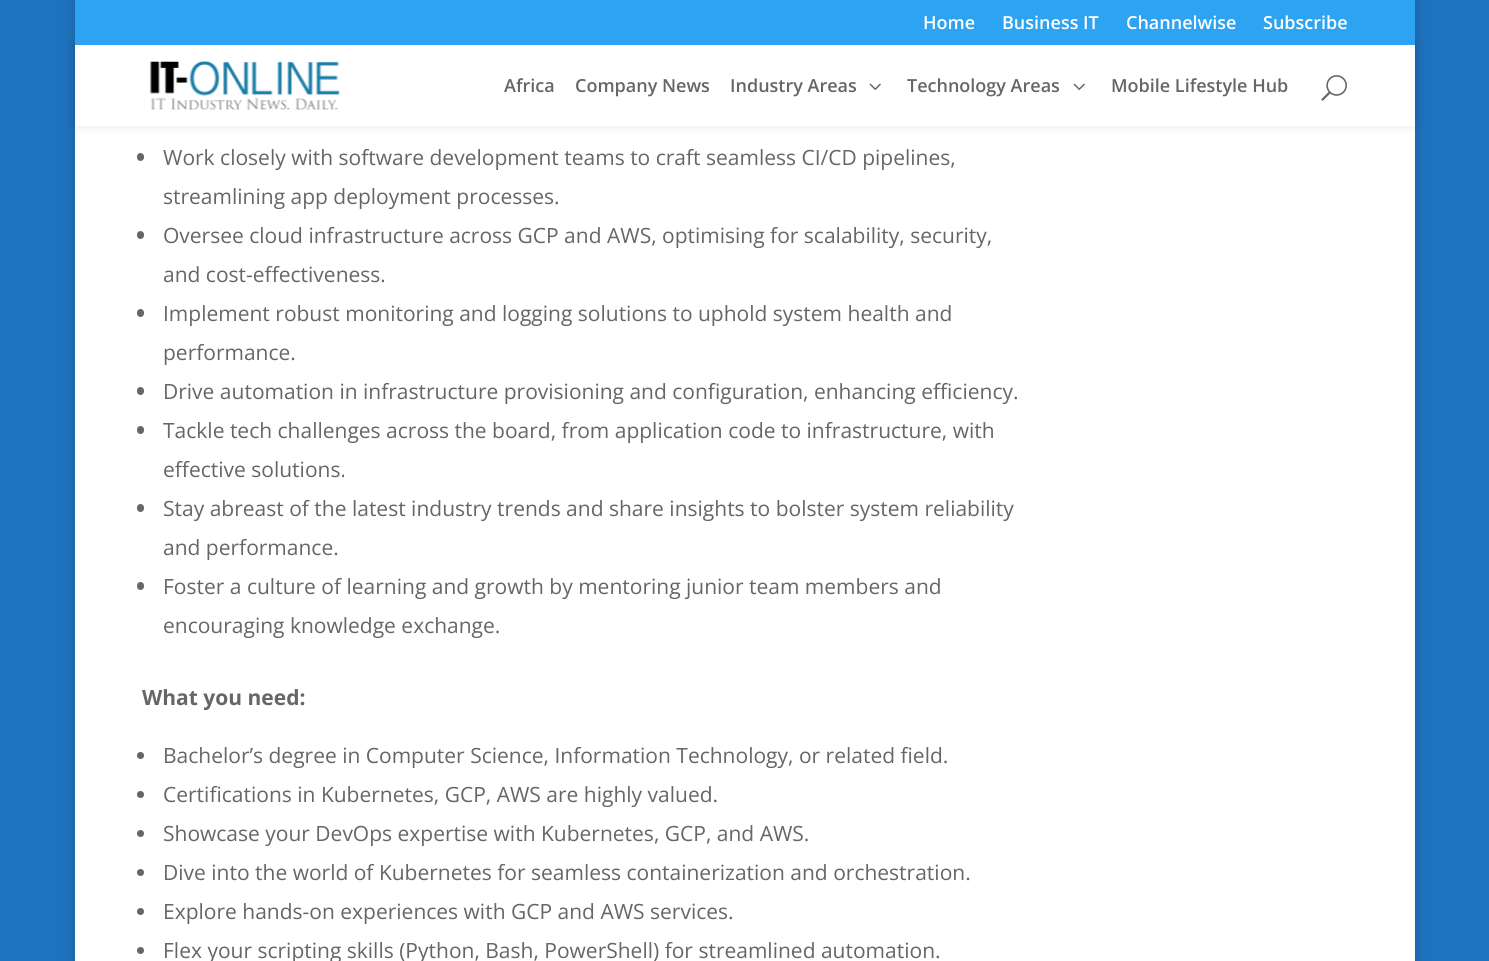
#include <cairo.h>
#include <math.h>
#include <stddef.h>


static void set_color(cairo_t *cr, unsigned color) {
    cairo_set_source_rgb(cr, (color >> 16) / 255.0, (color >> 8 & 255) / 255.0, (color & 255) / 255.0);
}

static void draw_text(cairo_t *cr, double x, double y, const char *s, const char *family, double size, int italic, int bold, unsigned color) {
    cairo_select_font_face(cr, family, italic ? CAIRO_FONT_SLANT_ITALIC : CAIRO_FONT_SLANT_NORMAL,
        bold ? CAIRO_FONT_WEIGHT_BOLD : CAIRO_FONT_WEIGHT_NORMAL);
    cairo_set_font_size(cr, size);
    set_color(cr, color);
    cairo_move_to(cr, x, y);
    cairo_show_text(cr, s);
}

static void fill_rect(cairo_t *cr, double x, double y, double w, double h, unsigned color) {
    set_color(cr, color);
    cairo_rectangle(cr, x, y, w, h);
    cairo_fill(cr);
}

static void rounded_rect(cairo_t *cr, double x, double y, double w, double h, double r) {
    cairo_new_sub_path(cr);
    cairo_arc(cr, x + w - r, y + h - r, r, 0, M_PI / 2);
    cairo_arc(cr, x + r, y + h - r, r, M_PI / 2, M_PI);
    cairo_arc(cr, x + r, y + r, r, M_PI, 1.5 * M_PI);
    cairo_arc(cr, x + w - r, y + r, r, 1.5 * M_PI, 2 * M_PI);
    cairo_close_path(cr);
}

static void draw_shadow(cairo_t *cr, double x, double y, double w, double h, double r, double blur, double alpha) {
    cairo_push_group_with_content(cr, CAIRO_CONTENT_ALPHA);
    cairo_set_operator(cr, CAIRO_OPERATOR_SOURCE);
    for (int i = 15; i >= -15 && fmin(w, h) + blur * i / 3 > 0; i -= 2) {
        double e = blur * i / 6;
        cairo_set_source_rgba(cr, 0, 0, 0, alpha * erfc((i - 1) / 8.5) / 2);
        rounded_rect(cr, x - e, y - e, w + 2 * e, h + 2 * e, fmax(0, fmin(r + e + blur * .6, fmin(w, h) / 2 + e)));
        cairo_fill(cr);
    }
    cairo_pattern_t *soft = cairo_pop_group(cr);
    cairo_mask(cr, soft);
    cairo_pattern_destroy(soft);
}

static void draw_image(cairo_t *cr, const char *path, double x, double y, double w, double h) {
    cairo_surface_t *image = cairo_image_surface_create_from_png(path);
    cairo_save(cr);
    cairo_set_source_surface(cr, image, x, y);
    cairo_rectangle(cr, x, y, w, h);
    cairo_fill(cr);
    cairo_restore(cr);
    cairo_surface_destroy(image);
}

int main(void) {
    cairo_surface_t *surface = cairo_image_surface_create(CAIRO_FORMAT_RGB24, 1489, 961);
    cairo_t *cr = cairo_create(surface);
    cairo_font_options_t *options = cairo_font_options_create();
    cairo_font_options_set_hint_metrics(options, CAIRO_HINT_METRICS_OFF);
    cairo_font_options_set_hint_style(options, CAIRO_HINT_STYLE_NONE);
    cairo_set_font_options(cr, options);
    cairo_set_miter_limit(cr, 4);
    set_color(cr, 0x1E73BE);
    cairo_paint(cr);
    set_color(cr, 0x000000);
    draw_shadow(cr, 75, -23, 1340, 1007, 0, 7.5, 0.2);
    fill_rect(cr, 75, 126, 1340, 835, 0xFFFFFF);
    set_color(cr, 0x000000);
    draw_shadow(cr, 75, 45, 1340, 81, 0, 5, 0.1);
    fill_rect(cr, 75, 0, 1340, 45, 0x2EA3F2);
    draw_text(cr, 923, 29, "Home", "Open Sans SemiBold", 18, 0, 0, 0xFFFFFF);
    draw_text(cr, 1002, 29, "Business IT", "Open Sans SemiBold", 18, 0, 0, 0xFFFFFF);
    draw_text(cr, 1126, 29, "Channelwise", "Open Sans SemiBold", 18, 0, 0, 0xFFFFFF);
    draw_text(cr, 1263, 29, "Subscribe", "Open Sans SemiBold", 18, 0, 0, 0xFFFFFF);
    fill_rect(cr, 75, 45, 1340, 81, 0xFFFFFF);
    draw_image(cr, "assets/img1.png", 149, 61, 191, 49);
    draw_text(cr, 504, 92, "Africa", "Open Sans SemiBold", 18, 0, 0, 0x666666);
    draw_text(cr, 575, 92, "Company News", "Open Sans SemiBold", 18, 0, 0, 0x666666);
    draw_text(cr, 730, 92, "Industry Areas", "Open Sans SemiBold", 18, 0, 0, 0x666666);
    draw_image(cr, "assets/img2.png", 869, 83, 12, 7);
    draw_text(cr, 907, 92, "Technology Areas", "Open Sans SemiBold", 18, 0, 0, 0x666666);
    draw_image(cr, "assets/img2.png", 1073, 83, 12, 7);
    draw_text(cr, 1111, 92, "Mobile Lifestyle Hub", "Open Sans SemiBold", 18, 0, 0, 0x666666);
    draw_image(cr, "assets/img3.png", 1321, 75, 26, 26);
    rounded_rect(cr, 137, 153, 7, 8, 3.5);
    cairo_fill(cr);
    draw_text(cr, 163, 165, "Work closely with software development teams to craft seamless CI/CD pipelines,", "Open Sans", 21, 0, 0, 0x666666);
    draw_text(cr, 163, 204, "streamlining app deployment processes.", "Open Sans", 21, 0, 0, 0x666666);
    rounded_rect(cr, 137, 231, 7, 8, 3.5);
    cairo_fill(cr);
    draw_text(cr, 163, 243, "Oversee cloud infrastructure across GCP and AWS, optimising for scalability, security,", "Open Sans", 21, 0, 0, 0x666666);
    draw_text(cr, 163, 282, "and cost-effectiveness.", "Open Sans", 21, 0, 0, 0x666666);
    rounded_rect(cr, 137, 309, 7, 8, 3.5);
    cairo_fill(cr);
    draw_text(cr, 163, 321, "Implement robust monitoring and logging solutions to uphold system health and", "Open Sans", 21, 0, 0, 0x666666);
    draw_text(cr, 163, 360, "performance.", "Open Sans", 21, 0, 0, 0x666666);
    rounded_rect(cr, 137, 387, 7, 8, 3.5);
    cairo_fill(cr);
    draw_text(cr, 163, 399, "Drive automation in infrastructure provisioning and configuration, enhancing efficiency.", "Open Sans", 21, 0, 0, 0x666666);
    rounded_rect(cr, 137, 426, 7, 8, 3.5);
    cairo_fill(cr);
    draw_text(cr, 163, 438, "Tackle tech challenges across the board, from application code to infrastructure, with", "Open Sans", 21, 0, 0, 0x666666);
    draw_text(cr, 163, 477, "effective solutions.", "Open Sans", 21, 0, 0, 0x666666);
    rounded_rect(cr, 137, 504, 7, 8, 3.5);
    cairo_fill(cr);
    draw_text(cr, 163, 516, "Stay abreast of the latest industry trends and share insights to bolster system reliability", "Open Sans", 21, 0, 0, 0x666666);
    draw_text(cr, 163, 555, "and performance.", "Open Sans", 21, 0, 0, 0x666666);
    rounded_rect(cr, 137, 582, 7, 8, 3.5);
    cairo_fill(cr);
    draw_text(cr, 163, 594, "Foster a culture of learning and growth by mentoring junior team members and", "Open Sans", 21, 0, 0, 0x666666);
    draw_text(cr, 163, 633, "encouraging knowledge exchange.", "Open Sans", 21, 0, 0, 0x666666);
    draw_text(cr, 142, 705, "What you need:", "Open Sans", 21, 0, 1, 0x666666);
    cairo_new_path(cr);
    cairo_arc(cr, 140.5, 755.5, 3.5, 0, 2 * M_PI);
    cairo_fill(cr);
    draw_text(cr, 163, 763, "Bachelor’s degree in Computer Science, Information Technology, or related field.", "Open Sans", 21, 0, 0, 0x666666);
    cairo_new_path(cr);
    cairo_arc(cr, 140.5, 794.5, 3.5, 0, 2 * M_PI);
    cairo_fill(cr);
    draw_text(cr, 163, 802, "Certifications in Kubernetes, GCP, AWS are highly valued.", "Open Sans", 21, 0, 0, 0x666666);
    cairo_new_path(cr);
    cairo_arc(cr, 140.5, 833.5, 3.5, 0, 2 * M_PI);
    cairo_fill(cr);
    draw_text(cr, 163, 841, "Showcase your DevOps expertise with Kubernetes, GCP, and AWS.", "Open Sans", 21, 0, 0, 0x666666);
    cairo_new_path(cr);
    cairo_arc(cr, 140.5, 872.5, 3.5, 0, 2 * M_PI);
    cairo_fill(cr);
    draw_text(cr, 163, 880, "Dive into the world of Kubernetes for seamless containerization and orchestration.", "Open Sans", 21, 0, 0, 0x666666);
    cairo_new_path(cr);
    cairo_arc(cr, 140.5, 911.5, 3.5, 0, 2 * M_PI);
    cairo_fill(cr);
    draw_text(cr, 163, 919, "Explore hands-on experiences with GCP and AWS services.", "Open Sans", 21, 0, 0, 0x666666);
    cairo_new_path(cr);
    cairo_arc(cr, 140.5, 950.5, 3.5, 0, 2 * M_PI);
    cairo_fill(cr);
    draw_text(cr, 163, 958, "Flex your scripting skills (Python, Bash, PowerShell) for streamlined automation.", "Open Sans", 21, 0, 0, 0x666666);
    cairo_surface_write_to_png(surface, "output.png");
    cairo_font_options_destroy(options);
    cairo_destroy(cr);
    cairo_surface_destroy(surface);
    return 0;
}
